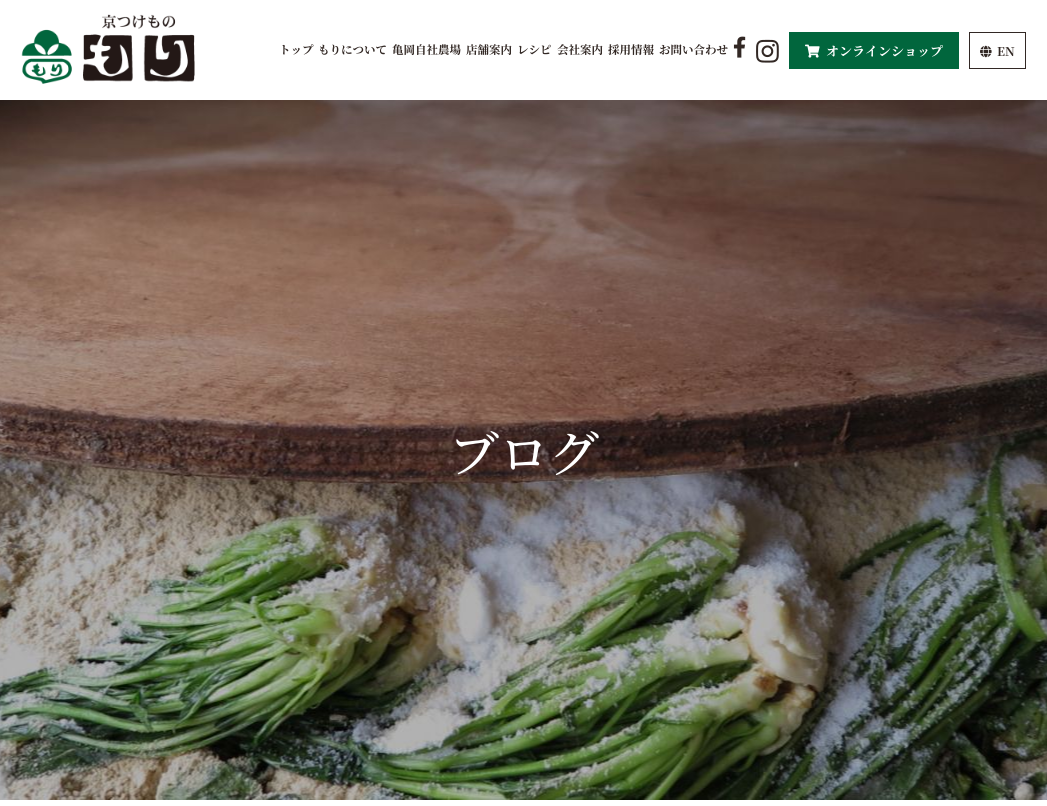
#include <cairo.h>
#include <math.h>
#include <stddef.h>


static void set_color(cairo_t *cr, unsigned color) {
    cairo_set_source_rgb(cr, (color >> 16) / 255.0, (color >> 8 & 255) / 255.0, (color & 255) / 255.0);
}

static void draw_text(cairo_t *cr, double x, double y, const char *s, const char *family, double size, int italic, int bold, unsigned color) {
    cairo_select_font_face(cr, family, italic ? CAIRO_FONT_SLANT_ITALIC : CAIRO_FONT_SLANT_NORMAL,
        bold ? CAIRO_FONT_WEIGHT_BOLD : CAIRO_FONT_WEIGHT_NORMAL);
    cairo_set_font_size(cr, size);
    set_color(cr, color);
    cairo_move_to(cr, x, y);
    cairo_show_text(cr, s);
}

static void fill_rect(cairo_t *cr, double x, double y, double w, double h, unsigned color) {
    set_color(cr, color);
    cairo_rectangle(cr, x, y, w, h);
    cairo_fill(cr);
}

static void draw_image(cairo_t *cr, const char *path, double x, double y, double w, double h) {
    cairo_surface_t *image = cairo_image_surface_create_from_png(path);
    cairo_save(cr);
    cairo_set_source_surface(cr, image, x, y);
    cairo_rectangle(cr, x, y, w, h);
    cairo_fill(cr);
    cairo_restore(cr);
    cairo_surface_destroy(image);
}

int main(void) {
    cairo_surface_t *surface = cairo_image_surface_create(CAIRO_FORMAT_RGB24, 1047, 806);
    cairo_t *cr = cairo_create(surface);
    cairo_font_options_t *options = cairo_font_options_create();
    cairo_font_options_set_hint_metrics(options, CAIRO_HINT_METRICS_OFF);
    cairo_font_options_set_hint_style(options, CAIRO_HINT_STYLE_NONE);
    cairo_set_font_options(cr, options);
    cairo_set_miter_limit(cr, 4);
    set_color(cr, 0xFFFFFF);
    cairo_paint(cr);
    draw_image(cr, "assets/img1.png", 21, 14, 174, 70);
    draw_text(cr, 279, 54, "トップ", "Noto Serif JP", 11.5, 0, 1, 0x322824);
    draw_text(cr, 318, 54, "もりについて", "Noto Serif JP", 11.5, 0, 1, 0x322824);
    draw_text(cr, 392, 54, "亀岡自社農場", "Noto Serif JP", 11.5, 0, 1, 0x322824);
    draw_text(cr, 466, 54, "店舗案内", "Noto Serif JP", 11.5, 0, 1, 0x322824);
    draw_text(cr, 517, 54, "レシピ", "Noto Serif JP", 11.5, 0, 1, 0x322824);
    draw_text(cr, 557, 54, "会社案内", "Noto Serif JP", 11.5, 0, 1, 0x322824);
    draw_text(cr, 608, 54, "採用情報", "Noto Serif JP", 11.5, 0, 1, 0x322824);
    draw_text(cr, 659, 54, "お問い合わせ", "Noto Serif JP", 11.5, 0, 1, 0x322824);
    draw_image(cr, "assets/img2.png", 733, 36, 13, 22);
    draw_image(cr, "assets/img3.png", 756, 39, 23, 24);
    fill_rect(cr, 789, 32, 170, 37, 0x01663D);
    draw_image(cr, "assets/img4.png", 805, 44, 15, 14);
    draw_text(cr, 826, 56, "オンラインショップ", "Noto Serif JP", 13, 0, 1, 0xFFFFFF);
    cairo_rectangle(cr, 969.5, 32.5, 56, 36);
    set_color(cr, 0x322824);
    cairo_set_line_width(cr, 1);
    cairo_stroke(cr);
    draw_image(cr, "assets/img5.png", 980, 45, 12, 13);
    draw_text(cr, 997, 56, "EN", "Noto Serif JP", 12, 0, 1, 0x322824);
    draw_image(cr, "assets/img6.png", 0, 100, 1047, 700);
    draw_text(cr, 449, 472, "ブログ", "Noto Serif JP Medium", 50, 0, 0, 0xFFFFFF);
    cairo_surface_write_to_png(surface, "output.png");
    cairo_font_options_destroy(options);
    cairo_destroy(cr);
    cairo_surface_destroy(surface);
    return 0;
}
